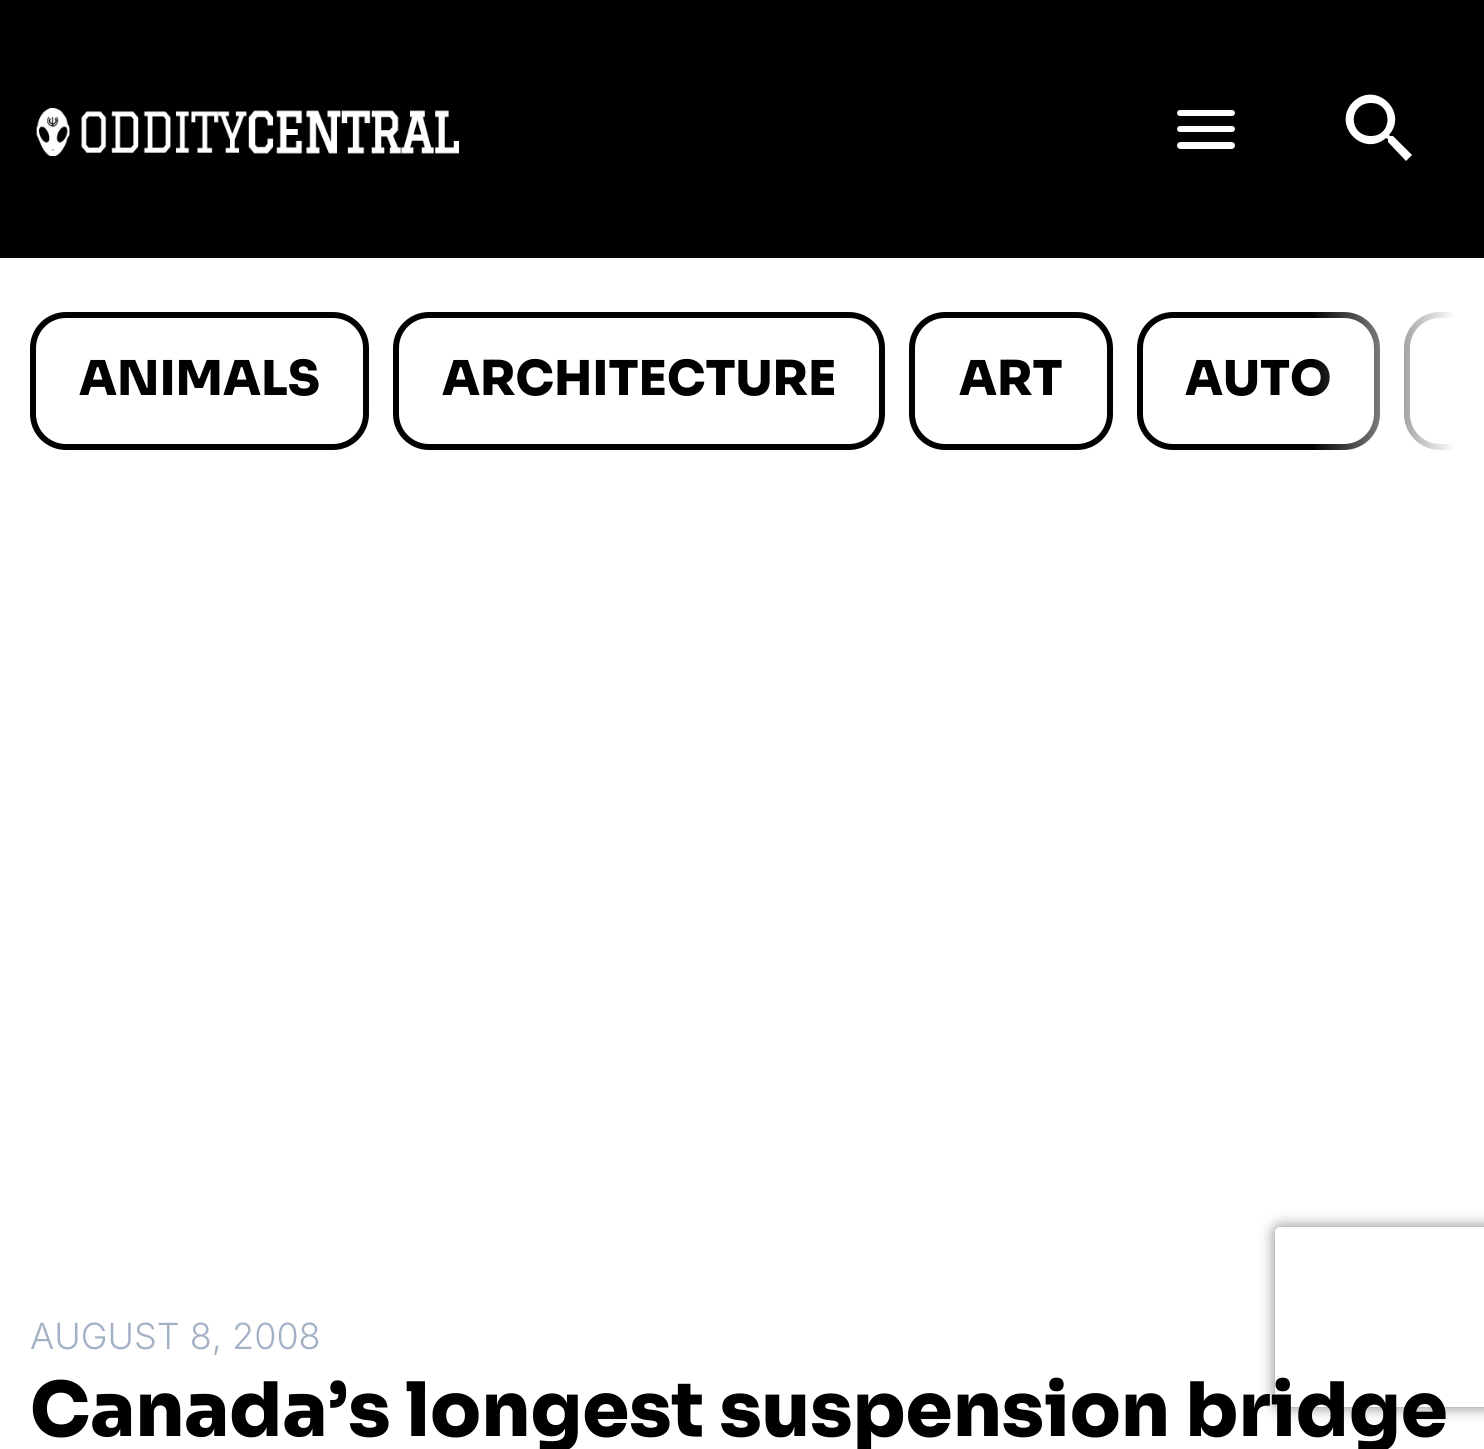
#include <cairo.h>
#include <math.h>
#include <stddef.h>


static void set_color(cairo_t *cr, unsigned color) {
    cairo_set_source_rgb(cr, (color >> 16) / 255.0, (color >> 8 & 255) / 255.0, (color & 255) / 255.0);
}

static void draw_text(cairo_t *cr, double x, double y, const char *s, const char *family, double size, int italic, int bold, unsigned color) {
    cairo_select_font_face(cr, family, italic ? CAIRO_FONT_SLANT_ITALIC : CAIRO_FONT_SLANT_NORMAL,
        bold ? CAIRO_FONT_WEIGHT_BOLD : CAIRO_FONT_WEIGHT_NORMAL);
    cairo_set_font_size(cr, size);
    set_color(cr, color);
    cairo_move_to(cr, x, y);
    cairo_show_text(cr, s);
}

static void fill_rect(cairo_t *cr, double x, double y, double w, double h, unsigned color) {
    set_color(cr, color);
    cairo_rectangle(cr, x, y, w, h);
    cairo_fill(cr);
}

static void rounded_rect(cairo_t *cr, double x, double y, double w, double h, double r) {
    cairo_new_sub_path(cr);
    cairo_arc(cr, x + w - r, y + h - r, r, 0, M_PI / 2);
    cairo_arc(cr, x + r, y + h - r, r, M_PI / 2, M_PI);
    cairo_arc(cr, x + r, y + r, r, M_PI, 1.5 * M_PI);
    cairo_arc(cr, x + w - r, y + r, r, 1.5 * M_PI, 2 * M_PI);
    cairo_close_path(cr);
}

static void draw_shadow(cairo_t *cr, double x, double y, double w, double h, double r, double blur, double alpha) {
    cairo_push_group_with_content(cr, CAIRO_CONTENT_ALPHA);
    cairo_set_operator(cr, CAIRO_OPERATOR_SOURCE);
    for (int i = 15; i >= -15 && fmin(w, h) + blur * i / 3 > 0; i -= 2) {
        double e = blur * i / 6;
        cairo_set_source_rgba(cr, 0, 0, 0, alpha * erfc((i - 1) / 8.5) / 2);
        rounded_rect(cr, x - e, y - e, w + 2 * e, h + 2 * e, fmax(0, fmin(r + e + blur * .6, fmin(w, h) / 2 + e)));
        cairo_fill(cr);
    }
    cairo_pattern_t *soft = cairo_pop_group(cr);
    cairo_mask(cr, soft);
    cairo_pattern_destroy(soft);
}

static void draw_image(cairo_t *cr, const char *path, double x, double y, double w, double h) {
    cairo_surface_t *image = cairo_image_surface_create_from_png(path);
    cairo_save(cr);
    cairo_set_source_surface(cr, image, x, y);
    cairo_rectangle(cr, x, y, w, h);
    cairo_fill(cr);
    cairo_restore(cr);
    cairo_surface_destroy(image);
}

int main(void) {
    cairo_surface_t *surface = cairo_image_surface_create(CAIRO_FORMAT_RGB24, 1484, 1449);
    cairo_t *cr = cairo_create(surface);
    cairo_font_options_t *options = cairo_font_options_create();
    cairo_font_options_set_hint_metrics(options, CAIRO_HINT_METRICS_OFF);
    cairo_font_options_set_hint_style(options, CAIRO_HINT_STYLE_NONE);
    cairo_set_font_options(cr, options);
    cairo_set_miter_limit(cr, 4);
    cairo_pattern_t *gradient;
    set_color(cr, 0xFFFFFF);
    cairo_paint(cr);
    fill_rect(cr, 0, 0, 1484, 258, 0x000000);
    draw_image(cr, "assets/img1.png", 36, 108, 423, 48);
    set_color(cr, 0xFFFFFF);
    rounded_rect(cr, 1177, 110, 58, 6, 3);
    cairo_fill(cr);
    rounded_rect(cr, 1177, 126, 58, 6, 3);
    cairo_fill(cr);
    rounded_rect(cr, 1177, 142, 58, 7, 3.5);
    cairo_fill(cr);
    cairo_new_path(cr);
    cairo_move_to(cr, 1393, 136);
    cairo_line_to(cr, 1390, 136);
    cairo_line_to(cr, 1389, 135);
    cairo_curve_to(cr, 1409, 112, 1376, 80, 1353, 102);
    cairo_curve_to(cr, 1331, 125, 1363, 158, 1386, 138);
    cairo_line_to(cr, 1388, 139);
    cairo_line_to(cr, 1388, 142);
    cairo_line_to(cr, 1406, 161);
    cairo_line_to(cr, 1412, 155);
    cairo_close_path(cr);
    cairo_move_to(cr, 1371, 136);
    cairo_curve_to(cr, 1348, 136, 1348, 103, 1371, 103);
    cairo_curve_to(cr, 1393, 103, 1393, 136, 1371, 136);
    cairo_close_path(cr);
    cairo_fill(cr);
    rounded_rect(cr, 33, 315, 333, 132, 33);
    set_color(cr, 0x000000);
    cairo_set_line_width(cr, 6);
    cairo_stroke(cr);
    draw_text(cr, 79, 395, "ANIMALS", "Sora ExtraBold", 48, 0, 0, 0x000000);
    rounded_rect(cr, 396, 315, 486, 132, 33);
    cairo_stroke(cr);
    draw_text(cr, 442, 395, "ARCHITECTURE", "Sora ExtraBold", 48, 0, 0, 0x000000);
    rounded_rect(cr, 912, 315, 198, 132, 33);
    cairo_stroke(cr);
    draw_text(cr, 959, 395, "ART", "Sora ExtraBold", 48, 0, 0, 0x000000);
    rounded_rect(cr, 1140, 315, 237, 132, 33);
    cairo_stroke(cr);
    draw_text(cr, 1185, 395, "AUTO", "Sora ExtraBold", 48, 0, 0, 0x000000);
    cairo_save(cr);
    cairo_rectangle(cr, 30, 300, 1425, 162);
    cairo_clip(cr);
    rounded_rect(cr, 1407, 315, 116, 132, 33);
    cairo_stroke(cr);
    cairo_restore(cr);
    gradient = cairo_pattern_create_linear(1455, 380, 1311, 380);
    cairo_pattern_add_color_stop_rgba(gradient, 0, 1, 1, 1, 1);
    cairo_pattern_add_color_stop_rgba(gradient, 1, 1, 1, 1, 0);
    cairo_set_source(cr, gradient);
    cairo_pattern_destroy(gradient);
    cairo_rectangle(cr, 1314, 312, 141, 138);
    cairo_fill(cr);
    cairo_save(cr);
    cairo_set_fill_rule(cr, CAIRO_FILL_RULE_EVEN_ODD);
    cairo_new_path(cr);
    cairo_move_to(cr, 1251, 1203);
    cairo_line_to(cr, 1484, 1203);
    cairo_line_to(cr, 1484, 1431);
    cairo_line_to(cr, 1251, 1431);
    cairo_close_path(cr);
    cairo_move_to(cr, 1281, 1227);
    cairo_line_to(cr, 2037, 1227);
    cairo_curve_to(cr, 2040.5, 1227, 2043, 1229.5, 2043, 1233);
    cairo_line_to(cr, 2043, 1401);
    cairo_curve_to(cr, 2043, 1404.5, 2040.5, 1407, 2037, 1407);
    cairo_line_to(cr, 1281, 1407);
    cairo_curve_to(cr, 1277.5, 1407, 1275, 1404.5, 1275, 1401);
    cairo_line_to(cr, 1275, 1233);
    cairo_curve_to(cr, 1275, 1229.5, 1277.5, 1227, 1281, 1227);
    cairo_close_path(cr);
    cairo_clip(cr);
    set_color(cr, 0x808080);
    draw_shadow(cr, 1275, 1227, 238, 180, 6, 7.5, 1);
    cairo_restore(cr);
    draw_text(cr, 30, 1349, "AUGUST 8, 2008", "Inter Light", 36, 0, 0, 0xA3B1C4);
    draw_text(cr, 30, 1436, "Canada’s longest suspension bridge", "Sora ExtraBold", 75, 0, 0, 0x000000);
    cairo_surface_write_to_png(surface, "output.png");
    cairo_font_options_destroy(options);
    cairo_destroy(cr);
    cairo_surface_destroy(surface);
    return 0;
}
